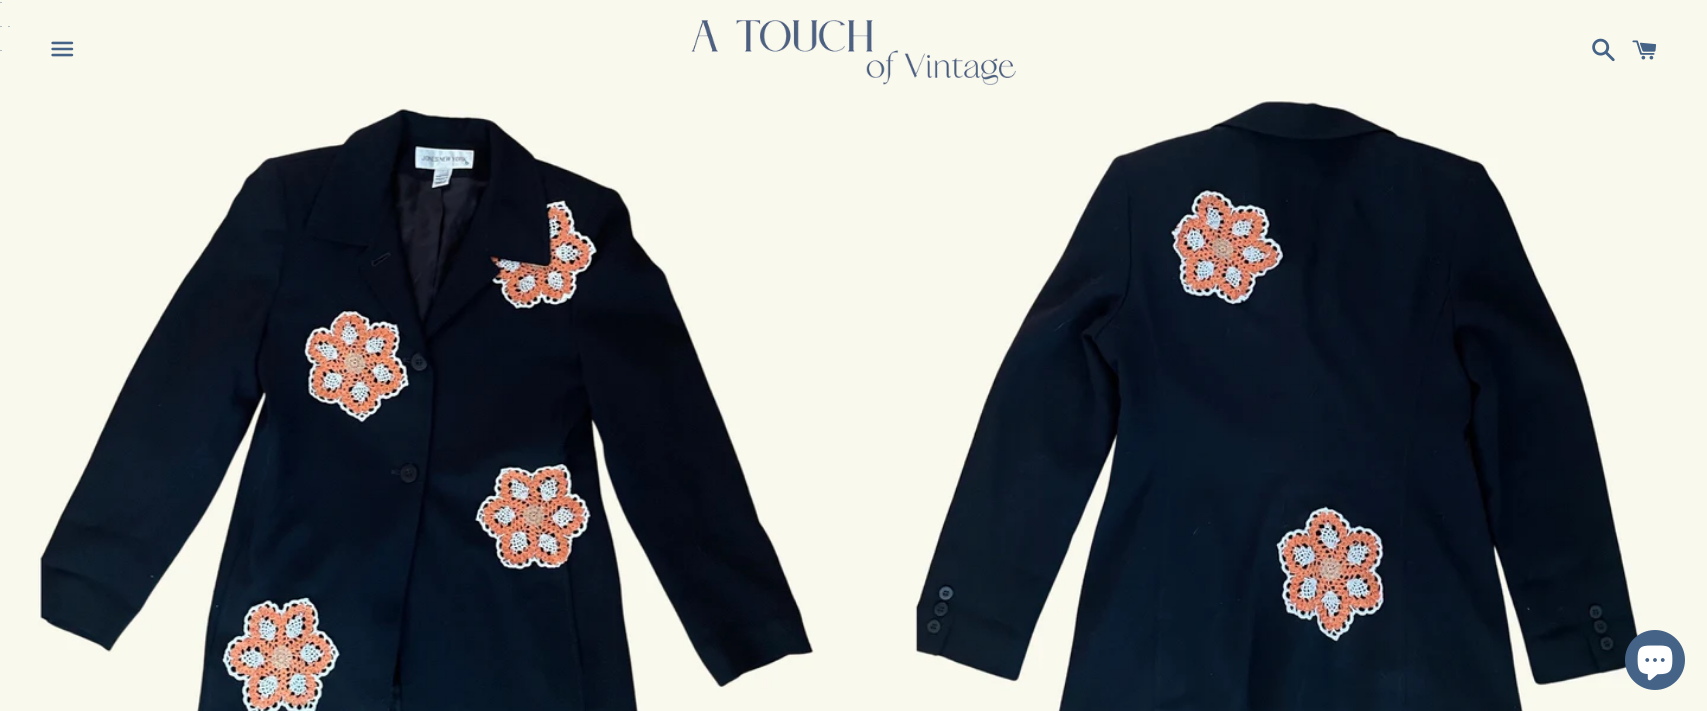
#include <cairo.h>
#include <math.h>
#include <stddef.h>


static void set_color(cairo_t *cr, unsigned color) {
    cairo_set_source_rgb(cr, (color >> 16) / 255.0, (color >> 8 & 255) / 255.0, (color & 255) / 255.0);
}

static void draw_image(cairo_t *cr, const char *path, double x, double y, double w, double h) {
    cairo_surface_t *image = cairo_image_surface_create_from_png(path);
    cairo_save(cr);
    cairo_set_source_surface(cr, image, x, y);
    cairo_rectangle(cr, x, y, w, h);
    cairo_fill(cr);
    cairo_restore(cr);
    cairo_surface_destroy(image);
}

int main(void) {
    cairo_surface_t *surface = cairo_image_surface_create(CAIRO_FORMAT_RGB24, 1707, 711);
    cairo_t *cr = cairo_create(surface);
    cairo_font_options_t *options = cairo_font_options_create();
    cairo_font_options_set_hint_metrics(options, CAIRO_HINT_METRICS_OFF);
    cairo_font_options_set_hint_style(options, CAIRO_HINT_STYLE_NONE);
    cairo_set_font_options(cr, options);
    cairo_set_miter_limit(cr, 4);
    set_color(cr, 0xFAF9EE);
    cairo_paint(cr);
    draw_image(cr, "assets/img1.png", 0, 2, 2, 1);
    draw_image(cr, "assets/img2.png", 0, 26, 2, 1);
    draw_image(cr, "assets/img1.png", 8, 26, 2, 1);
    draw_image(cr, "assets/img3.png", 51, 41, 23, 16);
    draw_image(cr, "assets/img4.png", 691, 20, 325, 65);
    draw_image(cr, "assets/img5.png", 1592, 38, 23, 24);
    draw_image(cr, "assets/img6.png", 1632, 40, 25, 20);
    draw_image(cr, "assets/img7.png", 38, 108, 777, 603);
    draw_image(cr, "assets/img8.png", 914, 100, 732, 611);
    draw_image(cr, "assets/img2.png", 0, 50, 2, 1);
    set_color(cr, 0x456387);
    cairo_arc(cr, 1655, 660, 30, 0, 2 * M_PI);
    cairo_fill(cr);
    draw_image(cr, "assets/img9.png", 1637, 645, 36, 36);
    cairo_surface_write_to_png(surface, "output.png");
    cairo_font_options_destroy(options);
    cairo_destroy(cr);
    cairo_surface_destroy(surface);
    return 0;
}
